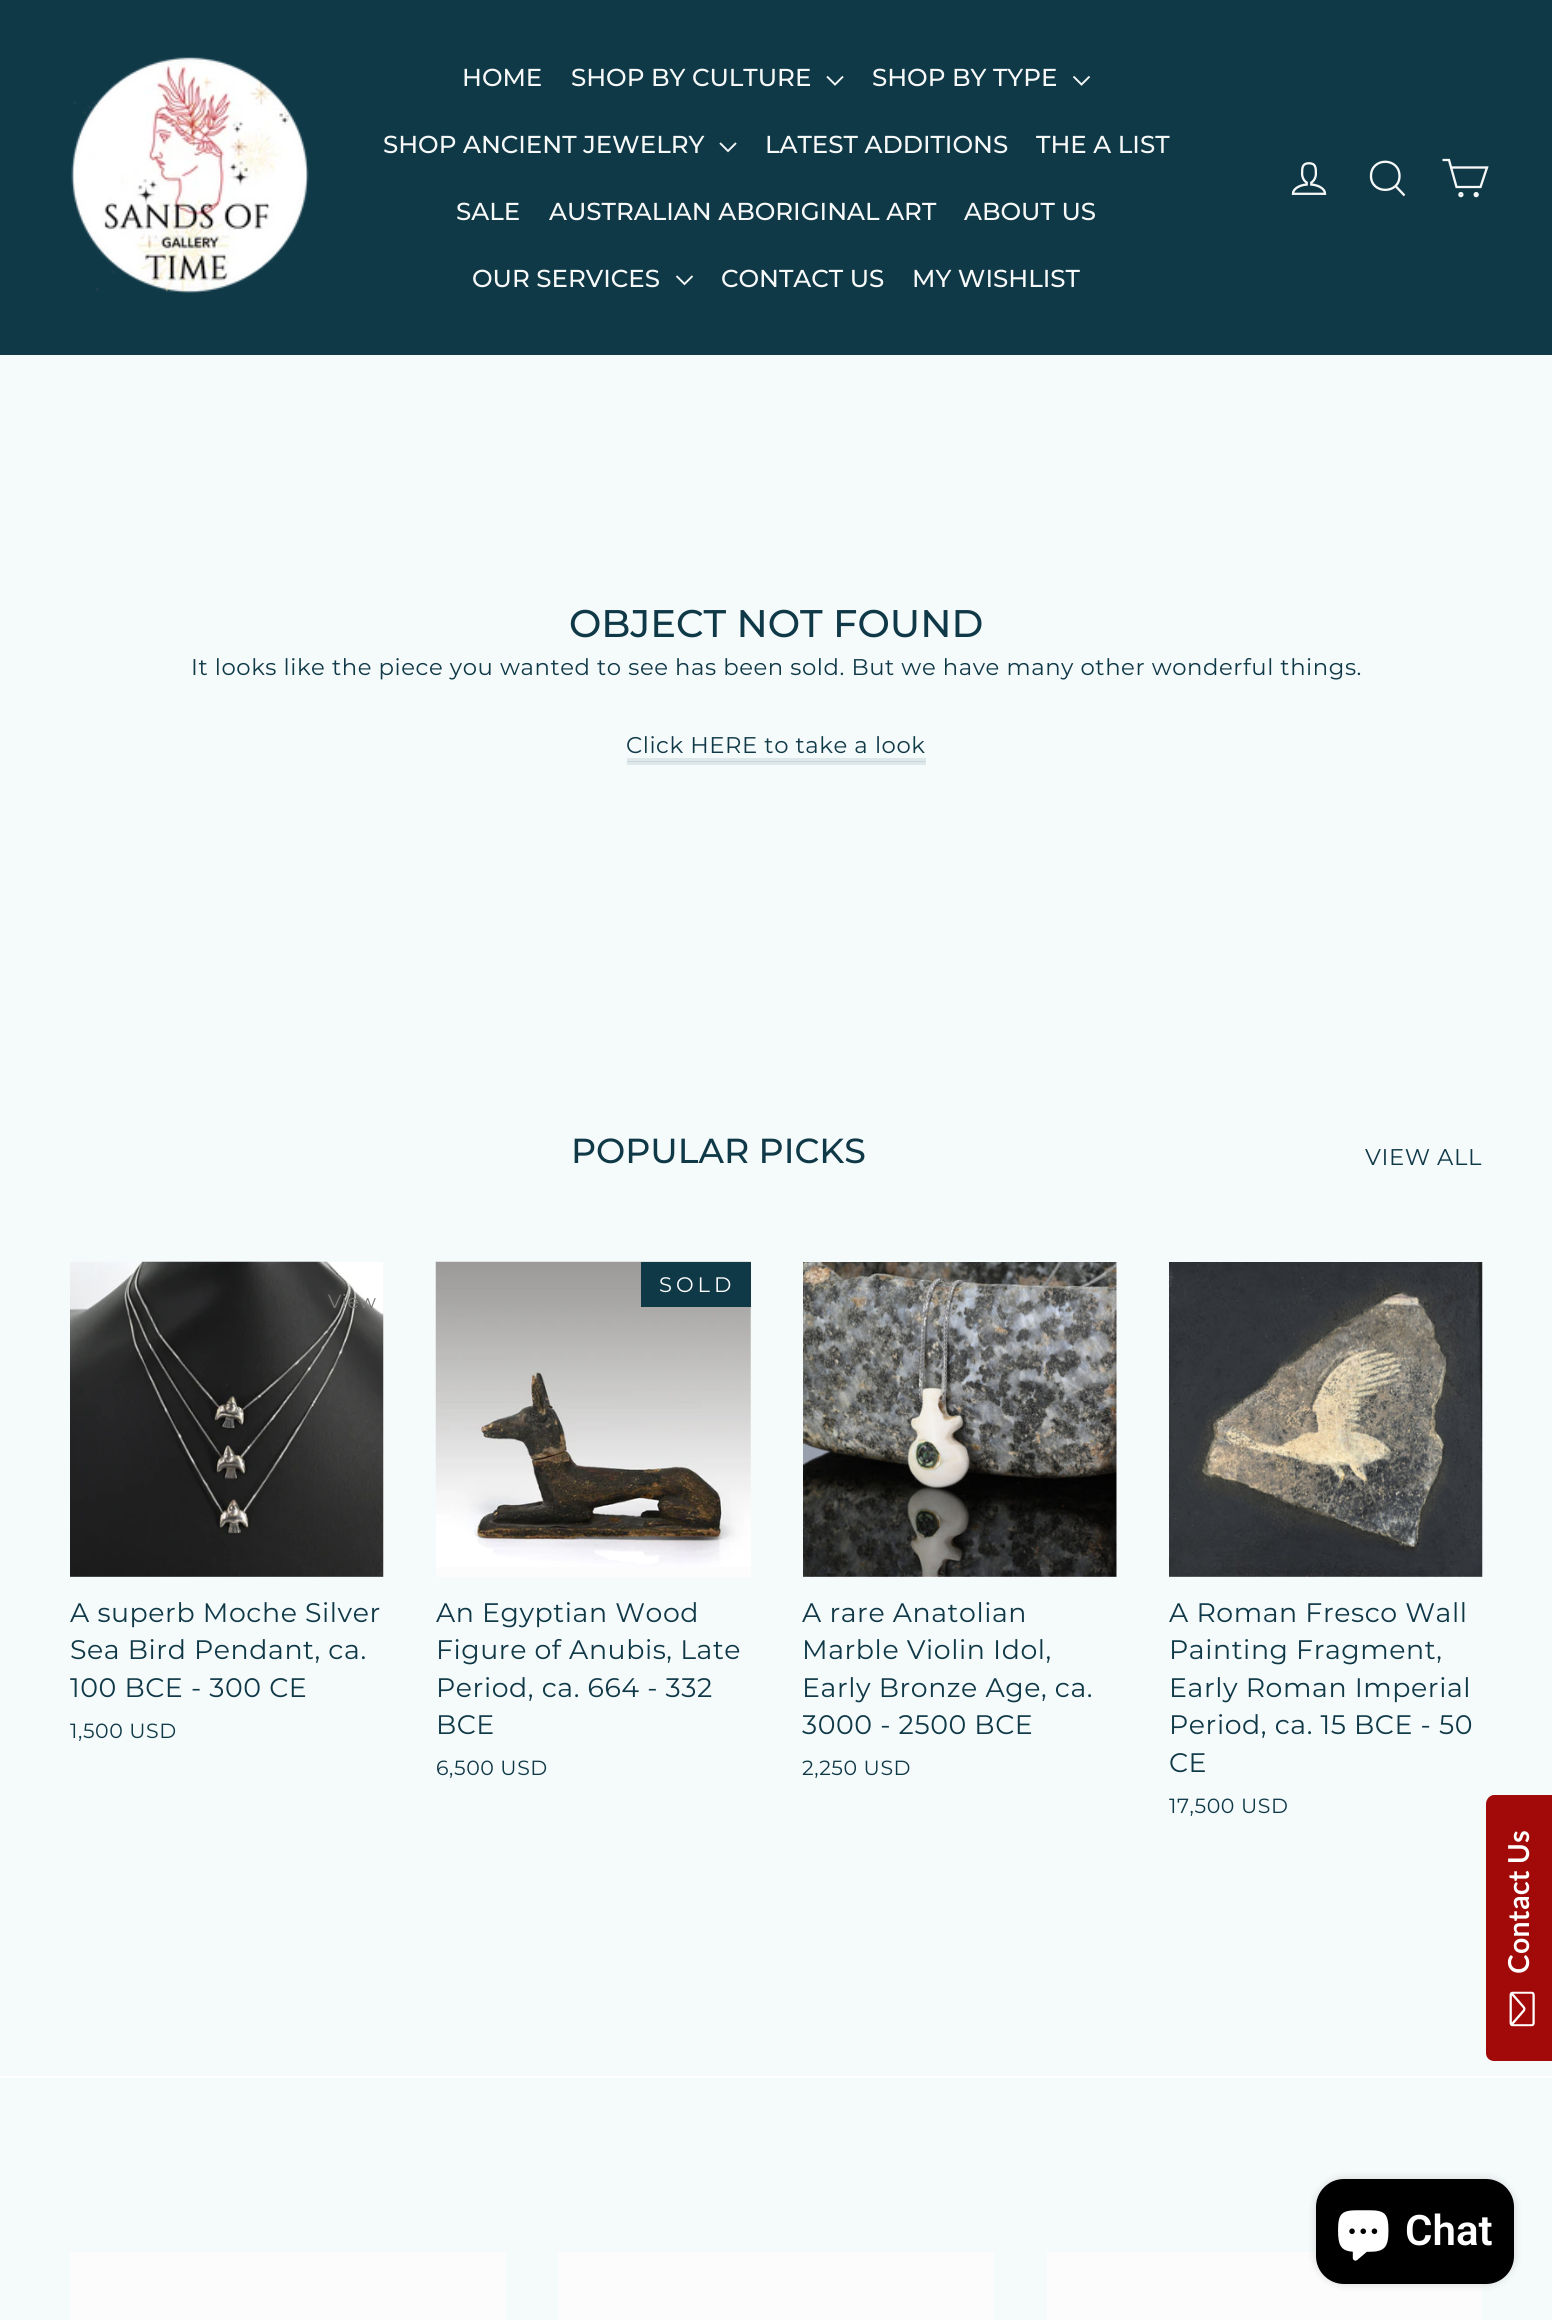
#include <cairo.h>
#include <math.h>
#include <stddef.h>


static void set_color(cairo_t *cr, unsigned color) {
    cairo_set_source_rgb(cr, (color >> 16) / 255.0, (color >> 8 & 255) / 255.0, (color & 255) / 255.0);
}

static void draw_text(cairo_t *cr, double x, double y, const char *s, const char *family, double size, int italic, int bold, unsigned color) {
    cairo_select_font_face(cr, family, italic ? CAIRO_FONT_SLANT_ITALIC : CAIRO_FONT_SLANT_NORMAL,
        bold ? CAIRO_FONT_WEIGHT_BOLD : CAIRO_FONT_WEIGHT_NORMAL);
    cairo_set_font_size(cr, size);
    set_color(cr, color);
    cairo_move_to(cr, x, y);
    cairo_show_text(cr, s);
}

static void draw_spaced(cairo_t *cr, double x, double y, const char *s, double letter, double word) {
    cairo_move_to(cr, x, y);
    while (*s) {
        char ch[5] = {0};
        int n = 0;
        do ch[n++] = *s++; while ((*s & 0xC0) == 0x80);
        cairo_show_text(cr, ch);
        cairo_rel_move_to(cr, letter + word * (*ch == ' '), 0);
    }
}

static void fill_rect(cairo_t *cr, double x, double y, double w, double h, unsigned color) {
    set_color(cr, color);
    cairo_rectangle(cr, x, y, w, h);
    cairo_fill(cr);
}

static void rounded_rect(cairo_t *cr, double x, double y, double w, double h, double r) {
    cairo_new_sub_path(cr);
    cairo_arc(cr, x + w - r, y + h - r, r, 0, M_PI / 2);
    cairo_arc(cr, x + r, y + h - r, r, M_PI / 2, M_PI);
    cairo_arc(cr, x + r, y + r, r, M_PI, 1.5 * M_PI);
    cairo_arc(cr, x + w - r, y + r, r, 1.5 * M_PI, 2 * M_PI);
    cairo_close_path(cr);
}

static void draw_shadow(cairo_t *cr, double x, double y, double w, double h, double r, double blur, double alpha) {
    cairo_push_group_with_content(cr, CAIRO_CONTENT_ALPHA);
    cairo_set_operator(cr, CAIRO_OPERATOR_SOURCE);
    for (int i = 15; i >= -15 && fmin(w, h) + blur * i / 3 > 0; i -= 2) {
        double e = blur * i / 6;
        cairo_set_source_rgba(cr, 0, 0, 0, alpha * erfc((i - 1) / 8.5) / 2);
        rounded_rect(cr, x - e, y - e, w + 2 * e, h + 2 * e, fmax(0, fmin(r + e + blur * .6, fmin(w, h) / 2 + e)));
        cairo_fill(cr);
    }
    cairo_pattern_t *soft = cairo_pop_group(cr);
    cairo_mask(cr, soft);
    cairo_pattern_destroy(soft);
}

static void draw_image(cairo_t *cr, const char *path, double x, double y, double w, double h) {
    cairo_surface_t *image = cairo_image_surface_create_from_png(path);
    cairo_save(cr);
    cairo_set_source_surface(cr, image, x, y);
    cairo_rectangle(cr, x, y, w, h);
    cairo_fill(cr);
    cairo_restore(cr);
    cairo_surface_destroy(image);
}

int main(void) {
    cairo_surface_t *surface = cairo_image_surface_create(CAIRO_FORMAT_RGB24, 1552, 2320);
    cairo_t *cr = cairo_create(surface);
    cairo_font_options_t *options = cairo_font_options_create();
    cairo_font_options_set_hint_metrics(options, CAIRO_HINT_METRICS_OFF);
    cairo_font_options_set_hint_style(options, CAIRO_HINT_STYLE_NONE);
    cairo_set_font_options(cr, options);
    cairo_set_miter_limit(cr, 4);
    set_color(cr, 0xF5FAFB);
    cairo_paint(cr);
    fill_rect(cr, 627, 762, 299, 3, 0xDEE7E9);
    fill_rect(cr, 0, 0, 1552, 355, 0x103948);
    draw_image(cr, "assets/img1.png", 71, 57, 238, 236);
    draw_text(cr, 462, 86, "HOME", "Montserrat Medium", 24.5, 0, 0, 0xF7F9F8);
    draw_text(cr, 571, 86, "SHOP BY CULTURE", "Montserrat Medium", 24.5, 0, 0, 0xF7F9F8);
    cairo_new_path(cr);
    cairo_move_to(cr, 827, 76.5);
    cairo_line_to(cr, 835, 84.5);
    cairo_line_to(cr, 843, 76.5);
    cairo_set_line_width(cr, 1.9);
    cairo_stroke(cr);
    draw_text(cr, 872, 86, "SHOP BY TYPE", "Montserrat Medium", 24.5, 0, 0, 0xF7F9F8);
    cairo_new_path(cr);
    cairo_move_to(cr, 1073.5, 76.5);
    cairo_line_to(cr, 1081.5, 84.5);
    cairo_line_to(cr, 1089.5, 76.5);
    cairo_stroke(cr);
    draw_text(cr, 383, 153, "SHOP ANCIENT JEWELRY", "Montserrat Medium", 24.5, 0, 0, 0xF7F9F8);
    cairo_new_path(cr);
    cairo_move_to(cr, 720, 143);
    cairo_line_to(cr, 728, 151);
    cairo_line_to(cr, 736, 143);
    cairo_stroke(cr);
    draw_text(cr, 765, 153, "LATEST ADDITIONS", "Montserrat Medium", 24.5, 0, 0, 0xF7F9F8);
    draw_text(cr, 1036, 153, "THE A LIST", "Montserrat Medium", 24.5, 0, 0, 0xF7F9F8);
    draw_text(cr, 456, 220, "SALE", "Montserrat Medium", 24.5, 0, 0, 0xF7F9F8);
    draw_text(cr, 549, 220, "AUSTRALIAN ABORIGINAL ART", "Montserrat Medium", 24.5, 0, 0, 0xF7F9F8);
    draw_text(cr, 964, 220, "ABOUT US", "Montserrat Medium", 24.5, 0, 0, 0xF7F9F8);
    draw_text(cr, 472, 287, "OUR SERVICES", "Montserrat Medium", 24.5, 0, 0, 0xF7F9F8);
    cairo_new_path(cr);
    cairo_move_to(cr, 676.5, 276);
    cairo_line_to(cr, 684.5, 284);
    cairo_line_to(cr, 692.5, 276);
    cairo_stroke(cr);
    draw_text(cr, 721, 287, "CONTACT US", "Montserrat Medium", 24.5, 0, 0, 0xF7F9F8);
    draw_text(cr, 912, 287, "MY WISHLIST", "Montserrat Medium", 24.5, 0, 0, 0xF7F9F8);
    draw_image(cr, "assets/img2.png", 1291, 162, 36, 33);
    cairo_new_path(cr);
    cairo_move_to(cr, 1399.5, 176);
    cairo_curve_to(cr, 1399.5, 194.5, 1371, 194.5, 1371, 176);
    cairo_curve_to(cr, 1371, 157, 1399.5, 157, 1399.5, 176);
    cairo_close_path(cr);
    cairo_move_to(cr, 1404.5, 195.5);
    cairo_line_to(cr, 1395.5, 186);
    cairo_set_line_width(cr, 2.3);
    cairo_stroke(cr);
    cairo_new_path(cr);
    cairo_move_to(cr, 1451, 167.5);
    cairo_line_to(cr, 1487, 167.5);
    cairo_line_to(cr, 1480.5, 187);
    cairo_line_to(cr, 1456.5, 187);
    cairo_line_to(cr, 1449, 160);
    cairo_line_to(cr, 1442.5, 160);
    cairo_stroke(cr);
    cairo_arc(cr, 1460.9, 194.6, 1.5, 0, 2 * M_PI);
    cairo_stroke(cr);
    cairo_arc(cr, 1476.2, 194.6, 1.5, 0, 2 * M_PI);
    cairo_fill_preserve(cr);
    cairo_stroke(cr);
    draw_text(cr, 569, 637, "OBJECT NOT FOUND", "Montserrat Medium", 38.5, 0, 0, 0x103948);
    cairo_select_font_face(cr, "Montserrat", CAIRO_FONT_SLANT_NORMAL, CAIRO_FONT_WEIGHT_NORMAL);
    cairo_set_font_size(cr, 22.75);
    draw_spaced(cr, 191, 675, "It looks like the piece you wanted to see has been sold. But we have many other wonderful things.", 0.57, 0);
    draw_spaced(cr, 626, 753, "Click HERE to take a look", 0.57, 0);
    fill_rect(cr, 627, 758, 299, 3, 0xDEE7E9);
    fill_rect(cr, 627, 761, 299, 1, 0xC9D6D9);
    draw_text(cr, 571, 1163, "POPULAR PICKS", "Montserrat Medium", 34.75, 0, 0, 0x103948);
    cairo_select_font_face(cr, "Montserrat", CAIRO_FONT_SLANT_NORMAL, CAIRO_FONT_WEIGHT_NORMAL);
    cairo_set_font_size(cr, 22.75);
    draw_spaced(cr, 1365, 1165, "VIEW ALL", 0.57, 0);
    draw_image(cr, "assets/img3.png", 70, 1261, 314, 316);
    cairo_set_font_size(cr, 19);
    set_color(cr, 0x7B7B79);
    draw_spaced(cr, 328, 1308, "View", 0.5, 0);
    cairo_set_font_size(cr, 26.8);
    set_color(cr, 0x103948);
    draw_spaced(cr, 70, 1622, "A superb Moche Silver", 0.57, 0);
    draw_spaced(cr, 70, 1659, "Sea Bird Pendant, ca.", 0.57, 0);
    draw_spaced(cr, 70, 1697, "100 BCE - 300 CE", 0.57, 0);
    cairo_set_font_size(cr, 20.5);
    draw_spaced(cr, 70, 1738, "1,500 USD", 0.57, 0);
    fill_rect(cr, 436, 1307, 315, 270, 0xFCFCFC);
    draw_image(cr, "assets/img4.png", 435, 1261, 316, 306);
    fill_rect(cr, 641, 1262, 110, 45, 0x103948);
    cairo_set_font_size(cr, 21);
    set_color(cr, 0xFFFFFF);
    draw_spaced(cr, 659, 1292, "SOLD", 4, 0);
    cairo_set_font_size(cr, 26.8);
    set_color(cr, 0x103948);
    draw_spaced(cr, 436, 1622, "An Egyptian Wood", 0.57, 0);
    draw_spaced(cr, 436, 1659, "Figure of Anubis, Late", 0.57, 0);
    draw_spaced(cr, 436, 1697, "Period, ca. 664 - 332", 0.57, 0);
    draw_spaced(cr, 436, 1734, "BCE", 0.57, 0);
    cairo_set_font_size(cr, 20.5);
    draw_spaced(cr, 436, 1775, "6,500 USD", 0.57, 0);
    fill_rect(cr, 803, 1262, 314, 315, 0xFCFCFC);
    draw_image(cr, "assets/img5.png", 803, 1262, 314, 315);
    cairo_set_font_size(cr, 26.8);
    set_color(cr, 0x103948);
    draw_spaced(cr, 802, 1622, "A rare Anatolian", 0.57, 0);
    draw_spaced(cr, 802, 1659, "Marble Violin Idol,", 0.57, 0);
    draw_spaced(cr, 802, 1697, "Early Bronze Age, ca.", 0.57, 0);
    draw_spaced(cr, 802, 1734, "3000 - 2500 BCE", 0.57, 0);
    cairo_set_font_size(cr, 20.5);
    draw_spaced(cr, 802, 1775, "2,250 USD", 0.57, 0);
    draw_image(cr, "assets/img6.png", 1169, 1262, 314, 315);
    cairo_set_font_size(cr, 26.8);
    draw_spaced(cr, 1169, 1622, "A Roman Fresco Wall", 0.57, 0);
    draw_spaced(cr, 1169, 1659, "Painting Fragment,", 0.57, 0);
    draw_spaced(cr, 1169, 1697, "Early Roman Imperial", 0.57, 0);
    draw_spaced(cr, 1169, 1734, "Period, ca. 15 BCE - 50", 0.57, 0);
    draw_spaced(cr, 1169, 1772, "CE", 0.57, 0);
    cairo_set_font_size(cr, 20.5);
    draw_spaced(cr, 1169, 1813, "17,500 USD", 0.57, 0);
    fill_rect(cr, 0, 2076, 1552, 2, 0xFFFFFF);
    fill_rect(cr, 70, 2252, 436, 68, 0xFCFCFC);
    fill_rect(cr, 558, 2252, 436, 68, 0xFCFCFC);
    fill_rect(cr, 1047, 2252, 435, 68, 0xFCFCFC);
    set_color(cr, 0xA20A0A);
    cairo_new_path(cr);
    cairo_move_to(cr, 1486, 2053);
    cairo_line_to(cr, 1486, 1804);
    cairo_curve_to(cr, 1486, 1799, 1490, 1795, 1494, 1795);
    cairo_line_to(cr, 1552, 1795);
    cairo_line_to(cr, 1552, 2061);
    cairo_line_to(cr, 1494, 2061);
    cairo_curve_to(cr, 1490, 2061, 1486, 2058, 1486, 2053);
    cairo_close_path(cr);
    cairo_fill(cr);
    cairo_select_font_face(cr, "Lato", CAIRO_FONT_SLANT_NORMAL, CAIRO_FONT_WEIGHT_BOLD);
    cairo_set_font_size(cr, 28);
    set_color(cr, 0xFFFFFF);
    cairo_save(cr);
    cairo_translate(cr, 1529, 1974);
    cairo_rotate(cr, -90 * M_PI / 180);
    draw_spaced(cr, 0, 0, "Contact Us", 0.75, 0);
    cairo_restore(cr);
    draw_image(cr, "assets/img7.png", 1509, 1991, 26, 36);
    set_color(cr, 0x000000);
    draw_shadow(cr, 1316, 2179, 198, 105, 28, 4.5, 0.15);
    set_color(cr, 0x000000);
    rounded_rect(cr, 1316, 2179, 198, 105, 28);
    cairo_fill(cr);
    draw_image(cr, "assets/img8.png", 1338, 2210, 51, 51);
    draw_text(cr, 1405, 2245, "Chat", "Roboto SemiBold", 42, 0, 0, 0xFFFFFF);
    cairo_surface_write_to_png(surface, "output.png");
    cairo_font_options_destroy(options);
    cairo_destroy(cr);
    cairo_surface_destroy(surface);
    return 0;
}
